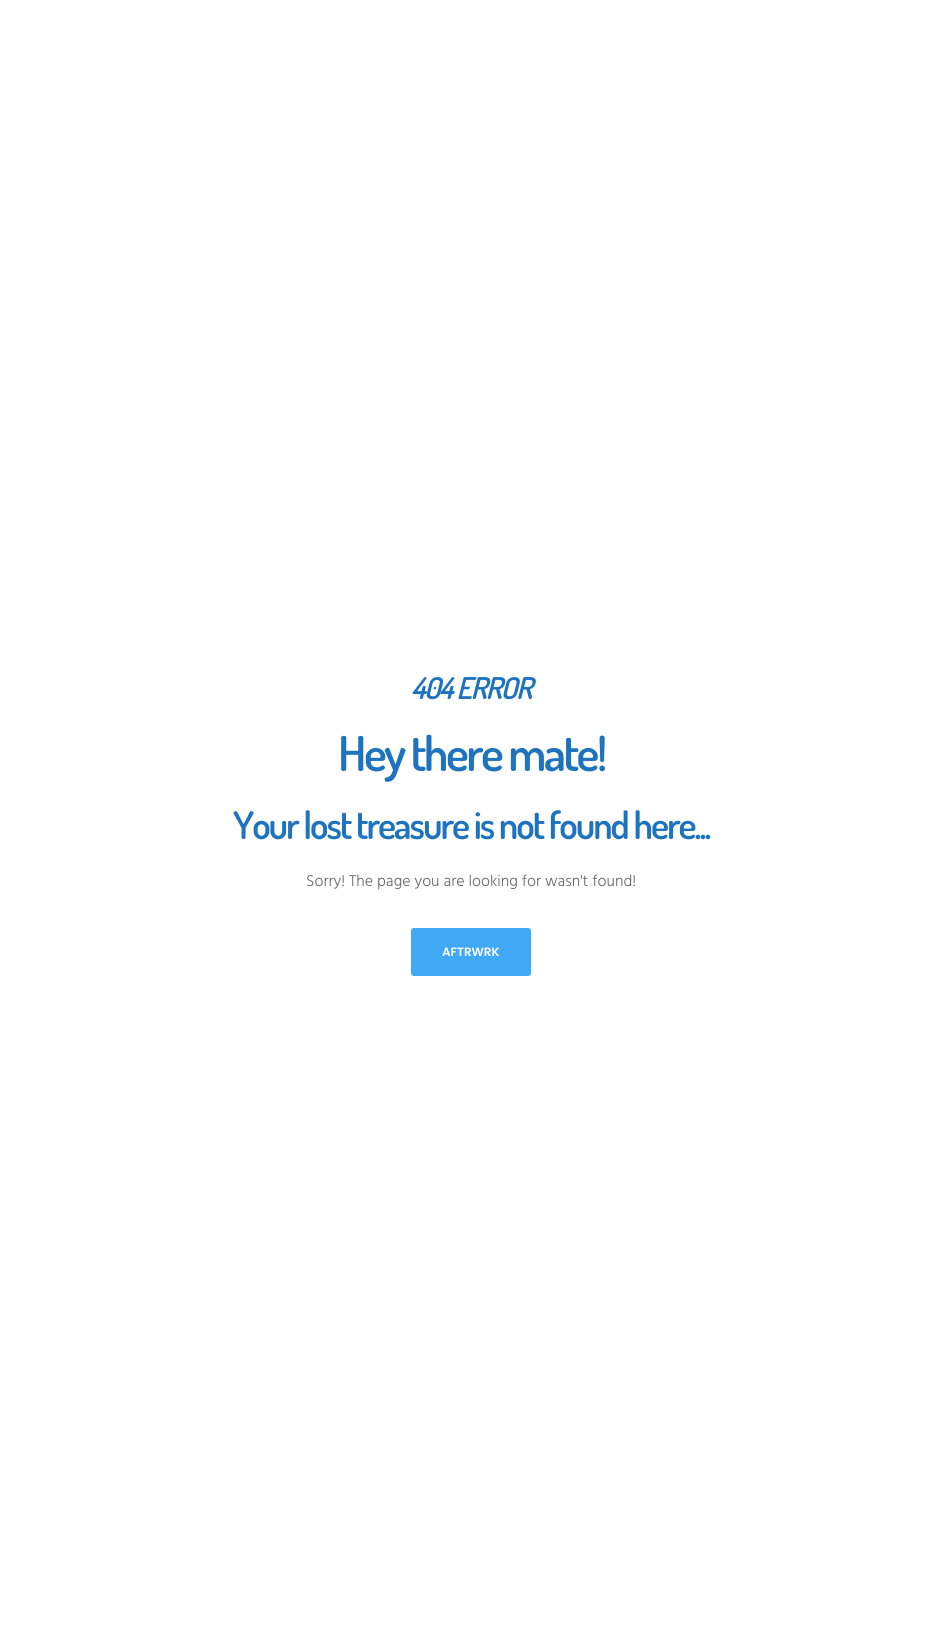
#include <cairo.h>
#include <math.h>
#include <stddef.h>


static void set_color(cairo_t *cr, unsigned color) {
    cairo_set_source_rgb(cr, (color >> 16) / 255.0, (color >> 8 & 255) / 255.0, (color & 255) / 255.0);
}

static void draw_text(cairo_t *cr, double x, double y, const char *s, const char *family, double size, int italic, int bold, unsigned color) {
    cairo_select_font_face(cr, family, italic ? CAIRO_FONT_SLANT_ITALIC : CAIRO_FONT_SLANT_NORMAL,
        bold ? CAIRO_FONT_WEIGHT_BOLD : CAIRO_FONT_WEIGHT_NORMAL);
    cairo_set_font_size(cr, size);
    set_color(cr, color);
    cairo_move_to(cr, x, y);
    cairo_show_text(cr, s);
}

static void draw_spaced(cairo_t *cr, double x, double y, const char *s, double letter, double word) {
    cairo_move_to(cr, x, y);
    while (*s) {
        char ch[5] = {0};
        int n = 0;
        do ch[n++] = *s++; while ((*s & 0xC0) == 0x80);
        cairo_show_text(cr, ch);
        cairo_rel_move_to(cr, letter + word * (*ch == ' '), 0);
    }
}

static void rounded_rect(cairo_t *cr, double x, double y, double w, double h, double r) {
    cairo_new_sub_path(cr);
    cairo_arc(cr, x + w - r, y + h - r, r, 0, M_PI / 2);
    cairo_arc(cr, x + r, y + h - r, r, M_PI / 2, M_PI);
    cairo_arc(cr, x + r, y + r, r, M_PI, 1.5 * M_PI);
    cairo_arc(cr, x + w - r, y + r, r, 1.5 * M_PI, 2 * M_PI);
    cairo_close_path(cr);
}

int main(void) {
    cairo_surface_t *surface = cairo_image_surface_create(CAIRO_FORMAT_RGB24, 942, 1644);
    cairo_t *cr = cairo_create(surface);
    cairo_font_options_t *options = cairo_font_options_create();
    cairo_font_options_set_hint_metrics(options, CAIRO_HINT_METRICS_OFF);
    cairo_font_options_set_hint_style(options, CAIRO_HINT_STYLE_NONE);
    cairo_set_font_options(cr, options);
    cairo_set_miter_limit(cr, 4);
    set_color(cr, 0xFFFFFF);
    cairo_paint(cr);
    cairo_select_font_face(cr, "Dosis SemiBold", CAIRO_FONT_SLANT_ITALIC, CAIRO_FONT_WEIGHT_NORMAL);
    cairo_set_font_size(cr, 30);
    set_color(cr, 0x1E73BE);
    draw_spaced(cr, 411, 699, "404 ERROR", -1.5, 0);
    cairo_select_font_face(cr, "Dosis SemiBold", CAIRO_FONT_SLANT_NORMAL, CAIRO_FONT_WEIGHT_NORMAL);
    cairo_set_font_size(cr, 48);
    draw_spaced(cr, 338, 771, "Hey there mate!", -2.5, 0);
    cairo_set_font_size(cr, 38);
    draw_spaced(cr, 233, 839, "Your lost treasure is not found here...", -2, 0);
    draw_text(cr, 306, 886, "Sorry! The page you are looking for wasn't found!", "Hind Light", 16, 0, 0, 0x676767);
    set_color(cr, 0x3FA9F5);
    rounded_rect(cr, 411.5, 928.5, 119, 47, 2.5);
    cairo_fill_preserve(cr);
    cairo_set_line_width(cr, 1);
    cairo_stroke(cr);
    draw_text(cr, 442, 956, "AFTRWRK", "Poppins SemiBold", 12, 0, 0, 0xFFFFFF);
    cairo_surface_write_to_png(surface, "output.png");
    cairo_font_options_destroy(options);
    cairo_destroy(cr);
    cairo_surface_destroy(surface);
    return 0;
}
